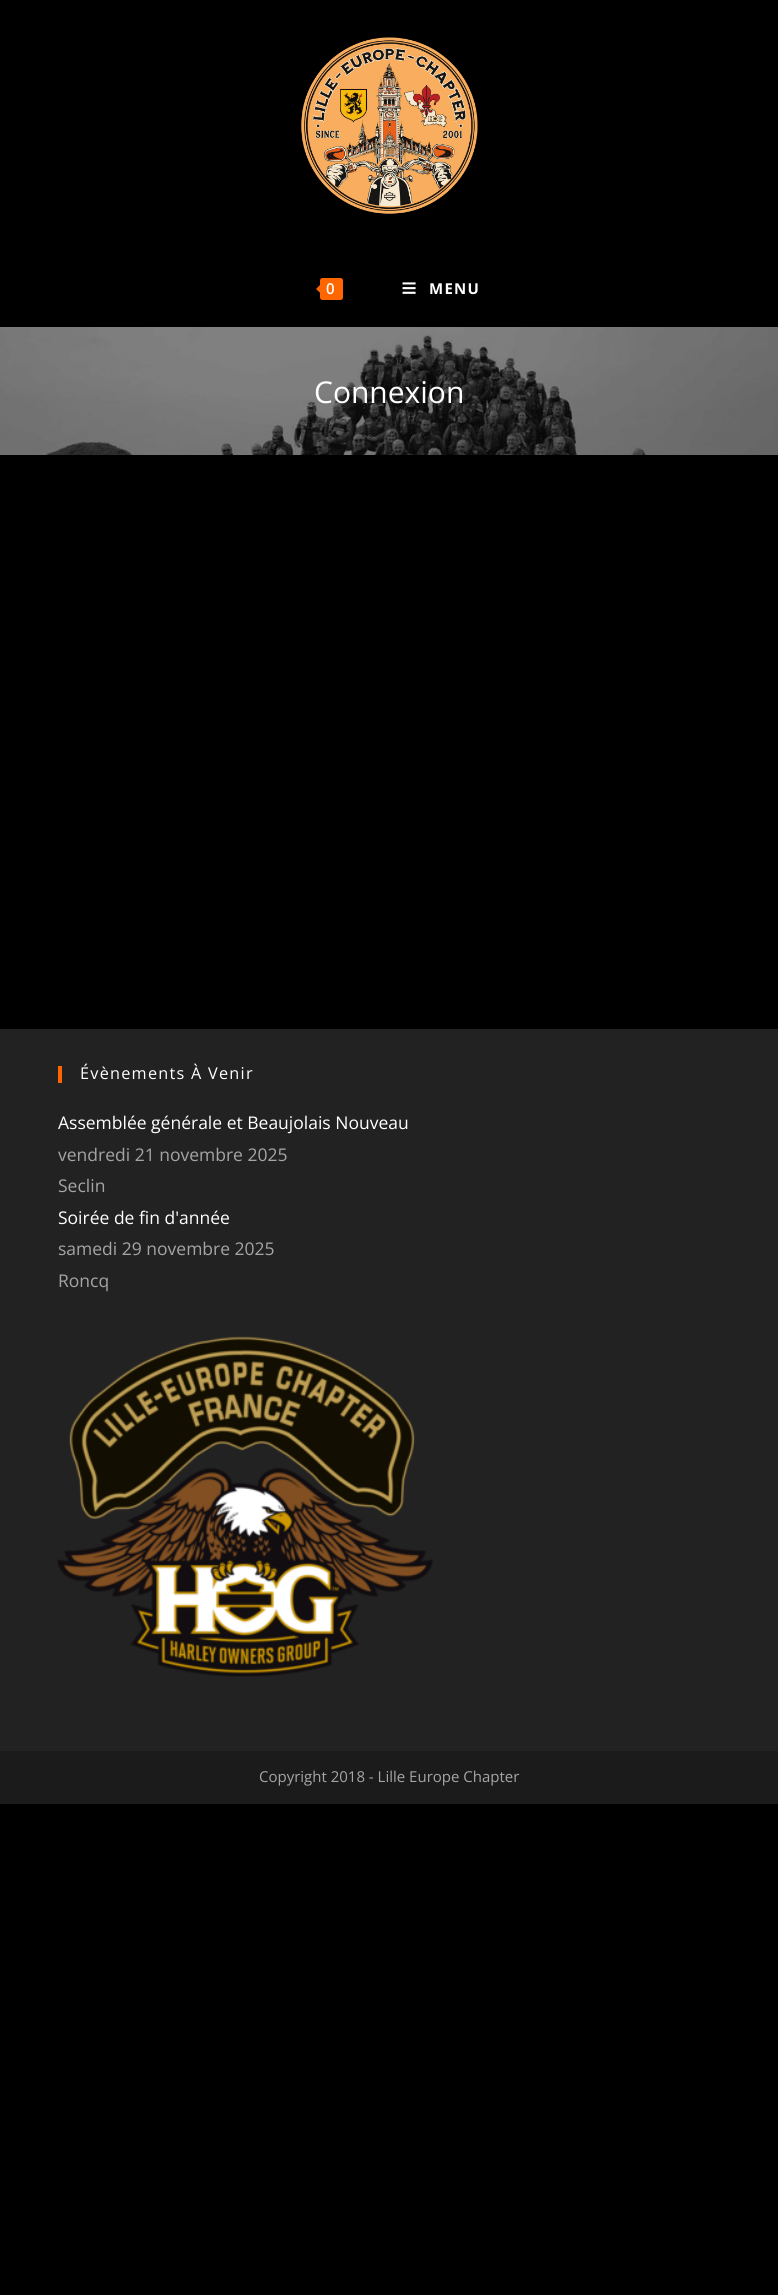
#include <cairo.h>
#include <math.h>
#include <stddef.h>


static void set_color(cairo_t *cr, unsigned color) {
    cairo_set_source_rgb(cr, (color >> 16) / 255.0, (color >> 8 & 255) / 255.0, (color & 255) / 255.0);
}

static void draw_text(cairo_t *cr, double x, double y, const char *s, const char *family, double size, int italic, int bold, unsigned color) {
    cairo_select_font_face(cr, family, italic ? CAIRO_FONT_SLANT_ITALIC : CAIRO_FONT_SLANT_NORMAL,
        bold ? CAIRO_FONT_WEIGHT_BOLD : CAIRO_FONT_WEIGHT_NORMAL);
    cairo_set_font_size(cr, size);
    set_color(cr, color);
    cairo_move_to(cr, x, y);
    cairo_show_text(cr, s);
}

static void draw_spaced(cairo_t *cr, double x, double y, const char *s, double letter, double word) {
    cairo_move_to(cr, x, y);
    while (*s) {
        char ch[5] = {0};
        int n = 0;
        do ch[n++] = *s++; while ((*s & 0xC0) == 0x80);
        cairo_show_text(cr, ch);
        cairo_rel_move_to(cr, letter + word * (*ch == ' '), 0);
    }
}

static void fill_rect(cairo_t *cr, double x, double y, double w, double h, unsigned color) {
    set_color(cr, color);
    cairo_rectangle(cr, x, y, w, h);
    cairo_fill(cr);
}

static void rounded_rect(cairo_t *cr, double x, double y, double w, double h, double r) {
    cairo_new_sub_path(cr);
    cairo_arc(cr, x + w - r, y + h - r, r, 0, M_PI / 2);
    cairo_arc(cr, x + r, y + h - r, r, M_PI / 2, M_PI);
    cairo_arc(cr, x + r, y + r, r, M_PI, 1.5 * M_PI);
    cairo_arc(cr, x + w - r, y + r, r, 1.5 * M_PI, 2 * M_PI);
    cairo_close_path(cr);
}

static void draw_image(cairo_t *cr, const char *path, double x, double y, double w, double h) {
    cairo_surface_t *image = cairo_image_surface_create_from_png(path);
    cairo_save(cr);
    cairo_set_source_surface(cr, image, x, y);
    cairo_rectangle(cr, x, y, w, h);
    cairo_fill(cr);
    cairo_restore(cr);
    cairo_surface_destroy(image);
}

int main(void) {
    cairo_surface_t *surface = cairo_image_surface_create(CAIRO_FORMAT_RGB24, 778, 2295);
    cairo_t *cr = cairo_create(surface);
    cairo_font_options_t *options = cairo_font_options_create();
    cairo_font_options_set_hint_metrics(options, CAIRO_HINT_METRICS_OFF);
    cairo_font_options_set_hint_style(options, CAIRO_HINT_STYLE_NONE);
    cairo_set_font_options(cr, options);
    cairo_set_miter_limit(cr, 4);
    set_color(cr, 0x000000);
    cairo_paint(cr);
    draw_image(cr, "assets/img1.png", 301, 37, 177, 177);
    set_color(cr, 0xFF6600);
    rounded_rect(cr, 320, 278, 23, 22, 2.5);
    cairo_fill(cr);
    cairo_new_path(cr);
    cairo_move_to(cr, 322.5, 282.5);
    cairo_line_to(cr, 322.5, 295);
    cairo_line_to(cr, 316, 289);
    cairo_close_path(cr);
    cairo_fill(cr);
    cairo_select_font_face(cr, "Open Sans SemiBold", CAIRO_FONT_SLANT_NORMAL, CAIRO_FONT_WEIGHT_NORMAL);
    cairo_set_font_size(cr, 15);
    set_color(cr, 0xFFFFFF);
    draw_spaced(cr, 326, 294, "0", 1.25, 0);
    draw_image(cr, "assets/img2.png", 402, 282, 14, 12);
    cairo_select_font_face(cr, "Open Sans", CAIRO_FONT_SLANT_NORMAL, CAIRO_FONT_WEIGHT_BOLD);
    draw_spaced(cr, 429, 294, "MENU", 1.25, 0);
    draw_image(cr, "assets/img3.png", 0, 327, 778, 128);
    draw_text(cr, 314, 403, "Connexion", "Open Sans", 30, 0, 0, 0xFFFFFF);
    fill_rect(cr, 0, 1029, 778, 722, 0x222222);
    fill_rect(cr, 58, 1066, 4, 17, 0xFF6600);
    cairo_set_font_size(cr, 16.25);
    set_color(cr, 0xFFFFFF);
    draw_spaced(cr, 80, 1079, "Évènements À Venir", 1.25, 0);
    draw_text(cr, 58, 1129, "Assemblée générale et Beaujolais Nouveau", "Open Sans", 17.5, 0, 0, 0xFFFFFF);
    draw_text(cr, 58, 1161, "vendredi 21 novembre 2025", "Open Sans", 17.5, 0, 0, 0xA5A5A5);
    draw_text(cr, 58, 1192, "Seclin", "Open Sans", 17.5, 0, 0, 0xA5A5A5);
    draw_text(cr, 58, 1224, "Soirée de fin d'année", "Open Sans", 17.5, 0, 0, 0xFFFFFF);
    draw_text(cr, 58, 1255, "samedi 29 novembre 2025", "Open Sans", 17.5, 0, 0, 0xA5A5A5);
    draw_text(cr, 58, 1287, "Roncq", "Open Sans", 17.5, 0, 0, 0xA5A5A5);
    draw_image(cr, "assets/img4.png", 57, 1336, 376, 341);
    fill_rect(cr, 0, 1751, 778, 53, 0x1B1B1B);
    draw_text(cr, 259, 1782, "Copyright 2018 - Lille Europe Chapter", "Open Sans", 15, 0, 0, 0xA5A5A5);
    cairo_surface_write_to_png(surface, "output.png");
    cairo_font_options_destroy(options);
    cairo_destroy(cr);
    cairo_surface_destroy(surface);
    return 0;
}
